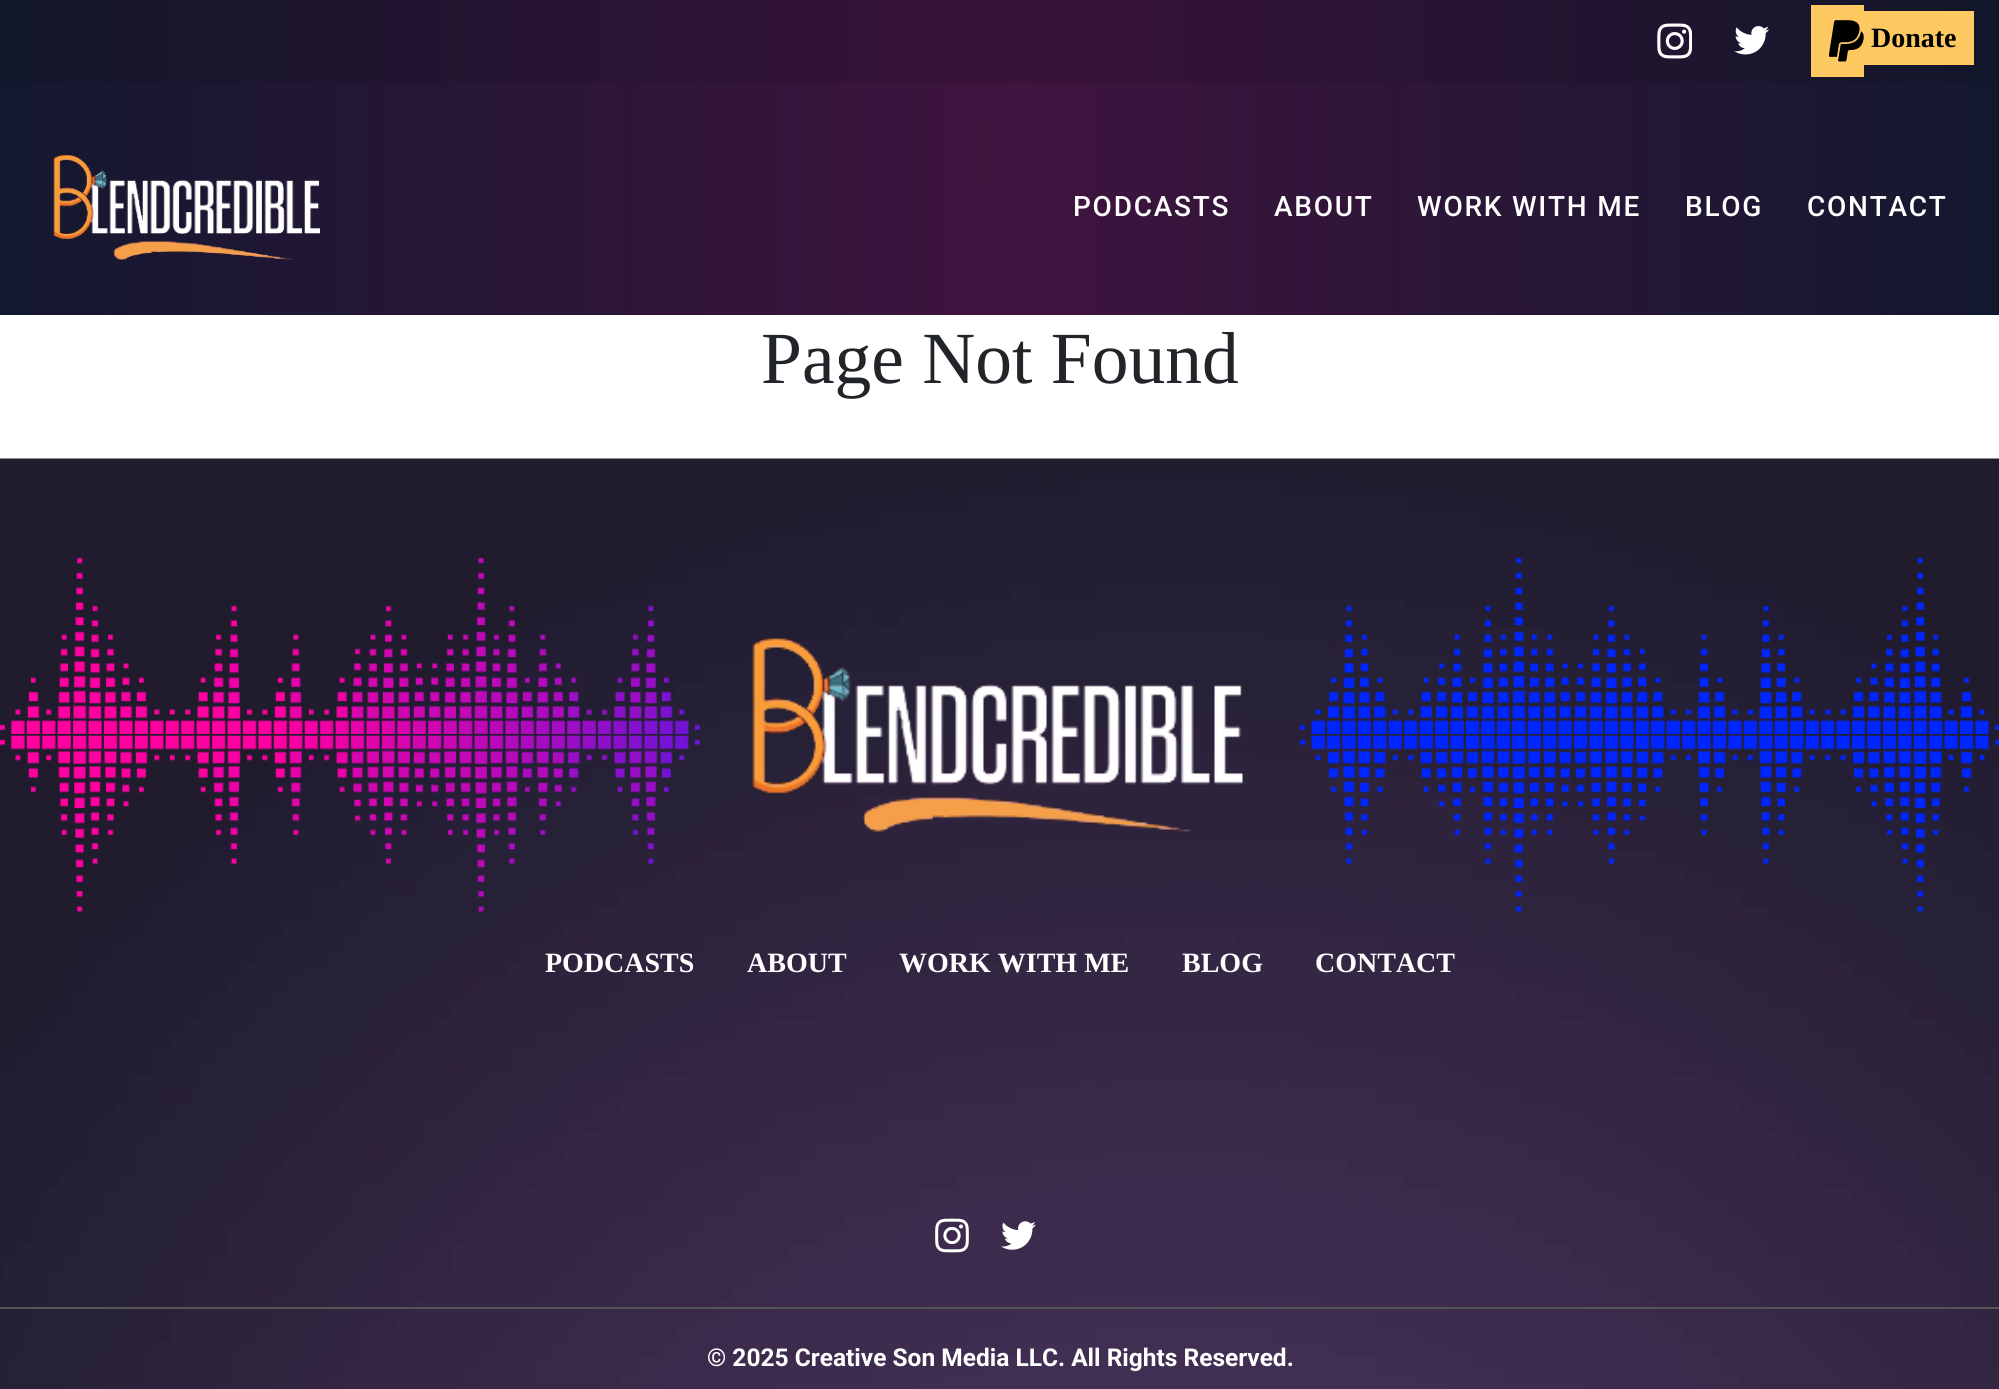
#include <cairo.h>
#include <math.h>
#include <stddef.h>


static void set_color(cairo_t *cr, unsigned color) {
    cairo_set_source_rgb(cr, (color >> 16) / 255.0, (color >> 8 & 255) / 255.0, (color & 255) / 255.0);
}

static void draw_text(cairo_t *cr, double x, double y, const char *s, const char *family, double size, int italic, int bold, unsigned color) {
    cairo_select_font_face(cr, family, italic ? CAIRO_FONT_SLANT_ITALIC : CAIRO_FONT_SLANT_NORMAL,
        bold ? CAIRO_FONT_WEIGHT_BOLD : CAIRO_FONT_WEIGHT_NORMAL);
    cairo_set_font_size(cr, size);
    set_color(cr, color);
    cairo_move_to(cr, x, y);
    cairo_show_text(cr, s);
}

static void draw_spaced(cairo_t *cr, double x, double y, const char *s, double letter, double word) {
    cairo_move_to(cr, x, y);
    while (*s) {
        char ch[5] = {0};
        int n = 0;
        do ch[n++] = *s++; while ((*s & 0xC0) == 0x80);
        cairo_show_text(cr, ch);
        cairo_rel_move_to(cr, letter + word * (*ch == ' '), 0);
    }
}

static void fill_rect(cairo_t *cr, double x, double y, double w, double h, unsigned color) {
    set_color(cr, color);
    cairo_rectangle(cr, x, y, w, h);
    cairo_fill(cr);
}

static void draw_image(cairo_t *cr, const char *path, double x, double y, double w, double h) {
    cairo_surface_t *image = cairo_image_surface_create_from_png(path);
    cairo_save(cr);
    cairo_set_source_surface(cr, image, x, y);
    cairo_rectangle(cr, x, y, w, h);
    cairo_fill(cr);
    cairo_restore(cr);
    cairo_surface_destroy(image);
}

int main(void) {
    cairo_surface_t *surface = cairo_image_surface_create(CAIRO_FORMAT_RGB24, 1999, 1389);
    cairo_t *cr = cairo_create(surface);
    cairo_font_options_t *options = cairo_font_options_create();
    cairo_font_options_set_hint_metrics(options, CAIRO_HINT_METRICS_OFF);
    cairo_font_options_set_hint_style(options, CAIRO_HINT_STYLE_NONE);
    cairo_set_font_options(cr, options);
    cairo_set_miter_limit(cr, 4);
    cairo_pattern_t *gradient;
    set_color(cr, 0xFFFFFF);
    cairo_paint(cr);
    gradient = cairo_pattern_create_linear(0, 158, 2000, 157);
    cairo_pattern_add_color_stop_rgba(gradient, 0, 0.075, 0.094, 0.184, 1);
    cairo_pattern_add_color_stop_rgba(gradient, 0.51, 0.247, 0.078, 0.243, 1);
    cairo_pattern_add_color_stop_rgba(gradient, 1, 0.075, 0.094, 0.184, 1);
    cairo_set_source(cr, gradient);
    cairo_pattern_destroy(gradient);
    cairo_rectangle(cr, 0, 82, 1999, 233);
    cairo_fill(cr);
    gradient = cairo_pattern_create_linear(0, 158, 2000, 157);
    cairo_pattern_add_color_stop_rgba(gradient, 0, 0.067, 0.086, 0.165, 1);
    cairo_pattern_add_color_stop_rgba(gradient, 0.51, 0.224, 0.071, 0.22, 1);
    cairo_pattern_add_color_stop_rgba(gradient, 1, 0.067, 0.086, 0.165, 1);
    cairo_set_source(cr, gradient);
    cairo_pattern_destroy(gradient);
    cairo_rectangle(cr, 0, 0, 1999, 82);
    cairo_fill(cr);
    draw_image(cr, "assets/img1.png", 1657, 23, 35, 36);
    draw_image(cr, "assets/img2.png", 1734, 26, 35, 29);
    fill_rect(cr, 1811, 5, 53, 72, 0xFFC962);
    draw_image(cr, "assets/img3.png", 1829, 20, 35, 42);
    fill_rect(cr, 1864, 11, 110, 54, 0xFFC962);
    draw_text(cr, 1871, 47, "Donate", "Liberation Serif", 28, 0, 1, 0x000000);
    draw_image(cr, "assets/img4.png", 53, 155, 267, 105);
    cairo_select_font_face(cr, "Roboto Medium", CAIRO_FONT_SLANT_NORMAL, CAIRO_FONT_WEIGHT_NORMAL);
    set_color(cr, 0xFFFFFF);
    draw_spaced(cr, 1073, 216, "PODCASTS", 1.75, 0);
    draw_spaced(cr, 1274, 216, "ABOUT", 1.75, 0);
    draw_spaced(cr, 1417, 216, "WORK WITH ME", 1.75, 0);
    draw_spaced(cr, 1685, 216, "BLOG", 1.75, 0);
    draw_spaced(cr, 1807, 216, "CONTACT", 1.75, 0);
    draw_text(cr, 761, 383, "Page Not Found", "Liberation Serif", 73.5, 0, 0, 0x212529);
    draw_image(cr, "assets/img5.png", 0, 458, 1999, 931);
    draw_image(cr, "assets/img6.png", 0, 558, 1999, 354);
    draw_image(cr, "assets/img7.png", 752, 638, 491, 194);
    draw_text(cr, 545, 972, "PODCASTS", "Liberation Serif", 28, 0, 1, 0xFFFFFF);
    draw_text(cr, 747, 972, "ABOUT", "Liberation Serif", 28, 0, 1, 0xFFFFFF);
    draw_text(cr, 899, 972, "WORK WITH ME", "Liberation Serif", 28, 0, 1, 0xFFFFFF);
    draw_text(cr, 1182, 972, "BLOG", "Liberation Serif", 28, 0, 1, 0xFFFFFF);
    draw_text(cr, 1315, 972, "CONTACT", "Liberation Serif", 28, 0, 1, 0xFFFFFF);
    draw_image(cr, "assets/img8.png", 935, 1218, 34, 35);
    draw_image(cr, "assets/img9.png", 1001, 1221, 35, 29);
    fill_rect(cr, 0, 1307, 1999, 2, 0x555555);
    draw_text(cr, 707, 1366, "© 2025 Creative Son Media LLC. All Rights Reserved.", "Roboto", 24.5, 0, 1, 0xFFFFFF);
    cairo_surface_write_to_png(surface, "output.png");
    cairo_font_options_destroy(options);
    cairo_destroy(cr);
    cairo_surface_destroy(surface);
    return 0;
}
